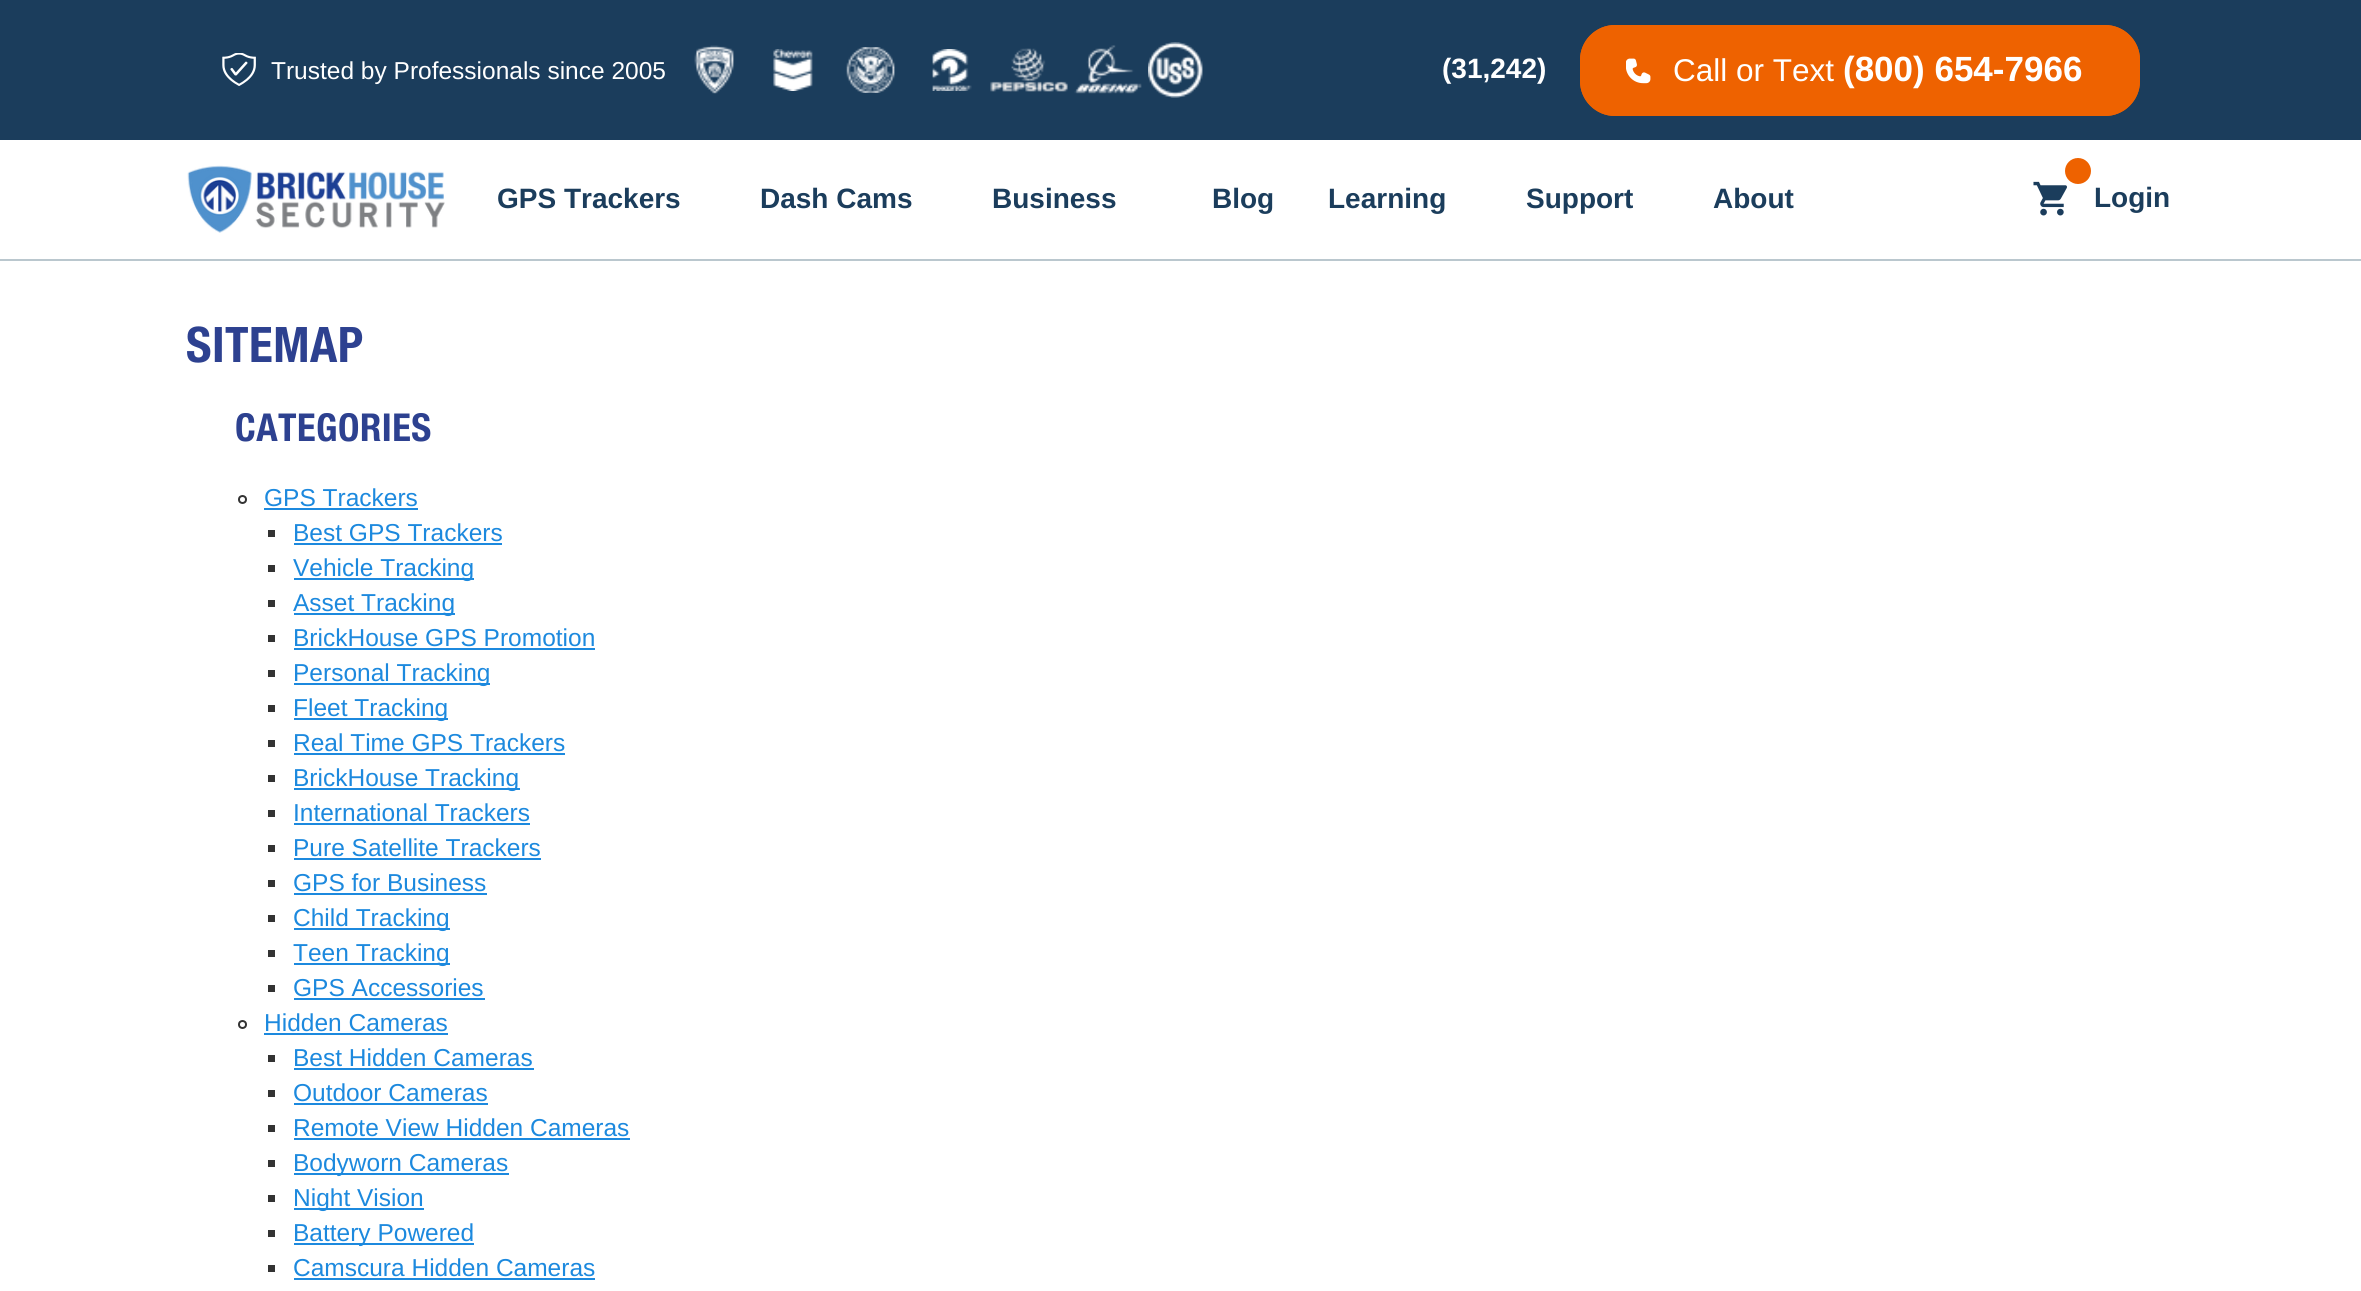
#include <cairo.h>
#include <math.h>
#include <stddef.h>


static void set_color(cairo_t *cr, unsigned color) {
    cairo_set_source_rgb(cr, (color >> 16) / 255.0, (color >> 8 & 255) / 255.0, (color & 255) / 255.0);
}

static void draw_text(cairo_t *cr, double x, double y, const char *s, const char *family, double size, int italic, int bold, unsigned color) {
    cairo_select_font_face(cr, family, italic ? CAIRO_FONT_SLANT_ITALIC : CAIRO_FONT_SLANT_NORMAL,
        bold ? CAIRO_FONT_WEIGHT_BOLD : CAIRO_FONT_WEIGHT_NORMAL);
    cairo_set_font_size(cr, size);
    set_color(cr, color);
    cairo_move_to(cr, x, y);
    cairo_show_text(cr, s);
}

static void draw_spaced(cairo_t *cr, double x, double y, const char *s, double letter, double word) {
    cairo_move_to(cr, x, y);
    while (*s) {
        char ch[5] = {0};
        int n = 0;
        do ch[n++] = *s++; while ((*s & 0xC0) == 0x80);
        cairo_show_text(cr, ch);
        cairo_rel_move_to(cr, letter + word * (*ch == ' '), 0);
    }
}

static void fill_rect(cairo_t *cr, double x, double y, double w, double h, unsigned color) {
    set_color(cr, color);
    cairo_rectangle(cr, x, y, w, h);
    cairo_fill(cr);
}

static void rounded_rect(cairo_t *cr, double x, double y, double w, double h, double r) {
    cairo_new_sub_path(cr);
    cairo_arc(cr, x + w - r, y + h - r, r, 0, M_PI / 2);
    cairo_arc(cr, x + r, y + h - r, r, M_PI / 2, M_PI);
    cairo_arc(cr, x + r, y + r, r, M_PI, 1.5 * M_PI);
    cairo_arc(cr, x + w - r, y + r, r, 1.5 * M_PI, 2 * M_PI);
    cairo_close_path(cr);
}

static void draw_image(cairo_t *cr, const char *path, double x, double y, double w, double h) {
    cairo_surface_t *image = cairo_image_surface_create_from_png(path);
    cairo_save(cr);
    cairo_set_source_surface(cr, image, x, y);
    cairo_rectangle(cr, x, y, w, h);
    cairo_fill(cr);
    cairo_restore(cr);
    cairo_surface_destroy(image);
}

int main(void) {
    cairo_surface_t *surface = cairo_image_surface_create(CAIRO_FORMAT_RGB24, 2361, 1291);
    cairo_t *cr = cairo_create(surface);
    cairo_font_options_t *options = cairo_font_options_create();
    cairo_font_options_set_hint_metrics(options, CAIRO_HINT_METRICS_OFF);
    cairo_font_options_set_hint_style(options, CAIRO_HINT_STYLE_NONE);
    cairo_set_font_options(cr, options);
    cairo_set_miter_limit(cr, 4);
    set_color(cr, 0xFFFFFF);
    cairo_paint(cr);
    fill_rect(cr, 0, 0, 2361, 140, 0x1B3D5C);
    draw_image(cr, "assets/img1.png", 222, 53, 34, 33);
    draw_text(cr, 271, 79, "Trusted by Professionals since 2005", "Liberation Sans", 24.5, 0, 0, 0xFFFFFF);
    draw_image(cr, "assets/img2.png", 694, 45, 40, 49);
    draw_image(cr, "assets/img3.png", 773, 49, 40, 42);
    draw_image(cr, "assets/img4.png", 846, 47, 49, 46);
    draw_image(cr, "assets/img5.png", 932, 49, 40, 42);
    draw_image(cr, "assets/img6.png", 990, 48, 78, 44);
    draw_image(cr, "assets/img7.png", 1074, 45, 68, 49);
    draw_image(cr, "assets/img8.png", 1148, 42, 55, 56);
    draw_text(cr, 1442, 78, "(31,242)", "Liberation Sans", 28, 0, 1, 0xFFFFFF);
    set_color(cr, 0xEE6200);
    rounded_rect(cr, 1580, 25, 560, 91, 35);
    cairo_fill(cr);
    draw_image(cr, "assets/img9.png", 1626, 58, 25, 26);
    rounded_rect(cr, 1581, 26, 558, 89, 34);
    cairo_stroke(cr);
    draw_text(cr, 1673, 81, "Call or Text", "Liberation Sans", 31.5, 0, 0, 0xFFFFFF);
    draw_text(cr, 1843, 81, "(800) 654-7966", "Liberation Sans", 35, 0, 1, 0xFFFFFF);
    fill_rect(cr, 0, 259, 2361, 2, 0xBAC7CE);
    draw_image(cr, "assets/img10.png", 187, 165, 258, 68);
    draw_text(cr, 497, 208, "GPS Trackers", "Liberation Sans", 28, 0, 1, 0x1B3D5C);
    draw_text(cr, 760, 208, "Dash Cams", "Liberation Sans", 28, 0, 1, 0x1B3D5C);
    draw_text(cr, 992, 208, "Business", "Liberation Sans", 28, 0, 1, 0x1B3D5C);
    draw_text(cr, 1212, 208, "Blog", "Liberation Sans", 28, 0, 1, 0x1B3D5C);
    draw_text(cr, 1328, 208, "Learning", "Liberation Sans", 28, 0, 1, 0x1B3D5C);
    draw_text(cr, 1526, 208, "Support", "Liberation Sans", 28, 0, 1, 0x1B3D5C);
    draw_text(cr, 1713, 208, "About", "Liberation Sans", 28, 0, 1, 0x1B3D5C);
    draw_image(cr, "assets/img11.png", 2033, 181, 34, 35);
    set_color(cr, 0xEE6200);
    cairo_arc(cr, 2078, 171, 13, 0, 2 * M_PI);
    cairo_fill(cr);
    draw_text(cr, 2094, 207, "Login", "Liberation Sans", 28, 0, 1, 0x1B3D5C);
    cairo_select_font_face(cr, "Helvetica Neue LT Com", CAIRO_FONT_SLANT_NORMAL, CAIRO_FONT_WEIGHT_BOLD);
    cairo_set_font_size(cr, 49);
    set_color(cr, 0x2D4190);
    draw_spaced(cr, 186, 362, "SITEMAP", 0.5, 0);
    cairo_set_font_size(cr, 38.5);
    draw_spaced(cr, 235, 441, "CATEGORIES", 0.5, 0);
    cairo_new_path(cr);
    cairo_arc(cr, 242.5, 499.5, 3.5, 0, 2 * M_PI);
    set_color(cr, 0x333333);
    cairo_stroke(cr);
    draw_text(cr, 264, 506, "GPS Trackers", "Liberation Sans", 24.5, 0, 0, 0x1C89DE);
    fill_rect(cr, 264, 508, 154, 2, 0x1C89DE);
    fill_rect(cr, 268, 530, 7, 7, 0x333333);
    draw_text(cr, 293, 541, "Best GPS Trackers", "Liberation Sans", 24.5, 0, 0, 0x1C89DE);
    fill_rect(cr, 294, 543, 208, 2, 0x1C89DE);
    fill_rect(cr, 268, 565, 7, 7, 0x333333);
    fill_rect(cr, 294, 578, 180, 2, 0x1C89DE);
    draw_text(cr, 293, 576, "Vehicle Tracking", "Liberation Sans", 24.5, 0, 0, 0x1C89DE);
    fill_rect(cr, 268, 600, 7, 7, 0x333333);
    fill_rect(cr, 294, 613, 161, 2, 0x1C89DE);
    draw_text(cr, 293, 611, "Asset Tracking", "Liberation Sans", 24.5, 0, 0, 0x1C89DE);
    fill_rect(cr, 268, 635, 7, 7, 0x333333);
    draw_text(cr, 293, 646, "BrickHouse GPS Promotion", "Liberation Sans", 24.5, 0, 0, 0x1C89DE);
    fill_rect(cr, 294, 648, 301, 2, 0x1C89DE);
    fill_rect(cr, 268, 670, 7, 7, 0x333333);
    fill_rect(cr, 294, 683, 196, 2, 0x1C89DE);
    draw_text(cr, 293, 681, "Personal Tracking", "Liberation Sans", 24.5, 0, 0, 0x1C89DE);
    fill_rect(cr, 268, 705, 7, 7, 0x333333);
    fill_rect(cr, 294, 718, 154, 2, 0x1C89DE);
    draw_text(cr, 293, 716, "Fleet Tracking", "Liberation Sans", 24.5, 0, 0, 0x1C89DE);
    fill_rect(cr, 268, 740, 7, 7, 0x333333);
    draw_text(cr, 293, 751, "Real Time GPS Trackers", "Liberation Sans", 24.5, 0, 0, 0x1C89DE);
    fill_rect(cr, 294, 753, 271, 2, 0x1C89DE);
    fill_rect(cr, 268, 775, 7, 7, 0x333333);
    fill_rect(cr, 294, 788, 226, 2, 0x1C89DE);
    draw_text(cr, 293, 786, "BrickHouse Tracking", "Liberation Sans", 24.5, 0, 0, 0x1C89DE);
    fill_rect(cr, 268, 810, 7, 7, 0x333333);
    draw_text(cr, 293, 821, "International Trackers", "Liberation Sans", 24.5, 0, 0, 0x1C89DE);
    fill_rect(cr, 294, 823, 236, 2, 0x1C89DE);
    fill_rect(cr, 268, 845, 7, 7, 0x333333);
    draw_text(cr, 293, 856, "Pure Satellite Trackers", "Liberation Sans", 24.5, 0, 0, 0x1C89DE);
    fill_rect(cr, 294, 858, 247, 2, 0x1C89DE);
    fill_rect(cr, 268, 880, 7, 7, 0x333333);
    draw_text(cr, 293, 891, "GPS for Business", "Liberation Sans", 24.5, 0, 0, 0x1C89DE);
    fill_rect(cr, 294, 893, 193, 2, 0x1C89DE);
    fill_rect(cr, 268, 915, 7, 7, 0x333333);
    fill_rect(cr, 294, 928, 156, 2, 0x1C89DE);
    draw_text(cr, 293, 926, "Child Tracking", "Liberation Sans", 24.5, 0, 0, 0x1C89DE);
    fill_rect(cr, 268, 950, 7, 7, 0x333333);
    fill_rect(cr, 294, 963, 156, 2, 0x1C89DE);
    draw_text(cr, 293, 961, "Teen Tracking", "Liberation Sans", 24.5, 0, 0, 0x1C89DE);
    fill_rect(cr, 268, 985, 7, 7, 0x333333);
    draw_text(cr, 293, 996, "GPS Accessories", "Liberation Sans", 24.5, 0, 0, 0x1C89DE);
    fill_rect(cr, 294, 998, 191, 2, 0x1C89DE);
    cairo_new_path(cr);
    cairo_arc(cr, 242.5, 1024.5, 3.5, 0, 2 * M_PI);
    set_color(cr, 0x333333);
    cairo_stroke(cr);
    draw_text(cr, 264, 1031, "Hidden Cameras", "Liberation Sans", 24.5, 0, 0, 0x1C89DE);
    fill_rect(cr, 264, 1033, 184, 2, 0x1C89DE);
    fill_rect(cr, 268, 1055, 7, 7, 0x333333);
    draw_text(cr, 293, 1066, "Best Hidden Cameras", "Liberation Sans", 24.5, 0, 0, 0x1C89DE);
    fill_rect(cr, 294, 1068, 240, 2, 0x1C89DE);
    fill_rect(cr, 268, 1090, 7, 7, 0x333333);
    draw_text(cr, 293, 1101, "Outdoor Cameras", "Liberation Sans", 24.5, 0, 0, 0x1C89DE);
    fill_rect(cr, 294, 1103, 194, 2, 0x1C89DE);
    fill_rect(cr, 268, 1125, 7, 7, 0x333333);
    draw_text(cr, 293, 1136, "Remote View Hidden Cameras", "Liberation Sans", 24.5, 0, 0, 0x1C89DE);
    fill_rect(cr, 294, 1138, 336, 2, 0x1C89DE);
    fill_rect(cr, 268, 1160, 7, 7, 0x333333);
    fill_rect(cr, 294, 1173, 215, 2, 0x1C89DE);
    draw_text(cr, 293, 1171, "Bodyworn Cameras", "Liberation Sans", 24.5, 0, 0, 0x1C89DE);
    fill_rect(cr, 268, 1195, 7, 7, 0x333333);
    fill_rect(cr, 294, 1208, 130, 2, 0x1C89DE);
    draw_text(cr, 293, 1206, "Night Vision", "Liberation Sans", 24.5, 0, 0, 0x1C89DE);
    fill_rect(cr, 268, 1230, 7, 7, 0x333333);
    fill_rect(cr, 294, 1243, 180, 2, 0x1C89DE);
    draw_text(cr, 293, 1241, "Battery Powered", "Liberation Sans", 24.5, 0, 0, 0x1C89DE);
    fill_rect(cr, 268, 1265, 7, 7, 0x333333);
    draw_text(cr, 293, 1276, "Camscura Hidden Cameras", "Liberation Sans", 24.5, 0, 0, 0x1C89DE);
    fill_rect(cr, 294, 1278, 301, 2, 0x1C89DE);
    cairo_surface_write_to_png(surface, "output.png");
    cairo_font_options_destroy(options);
    cairo_destroy(cr);
    cairo_surface_destroy(surface);
    return 0;
}
